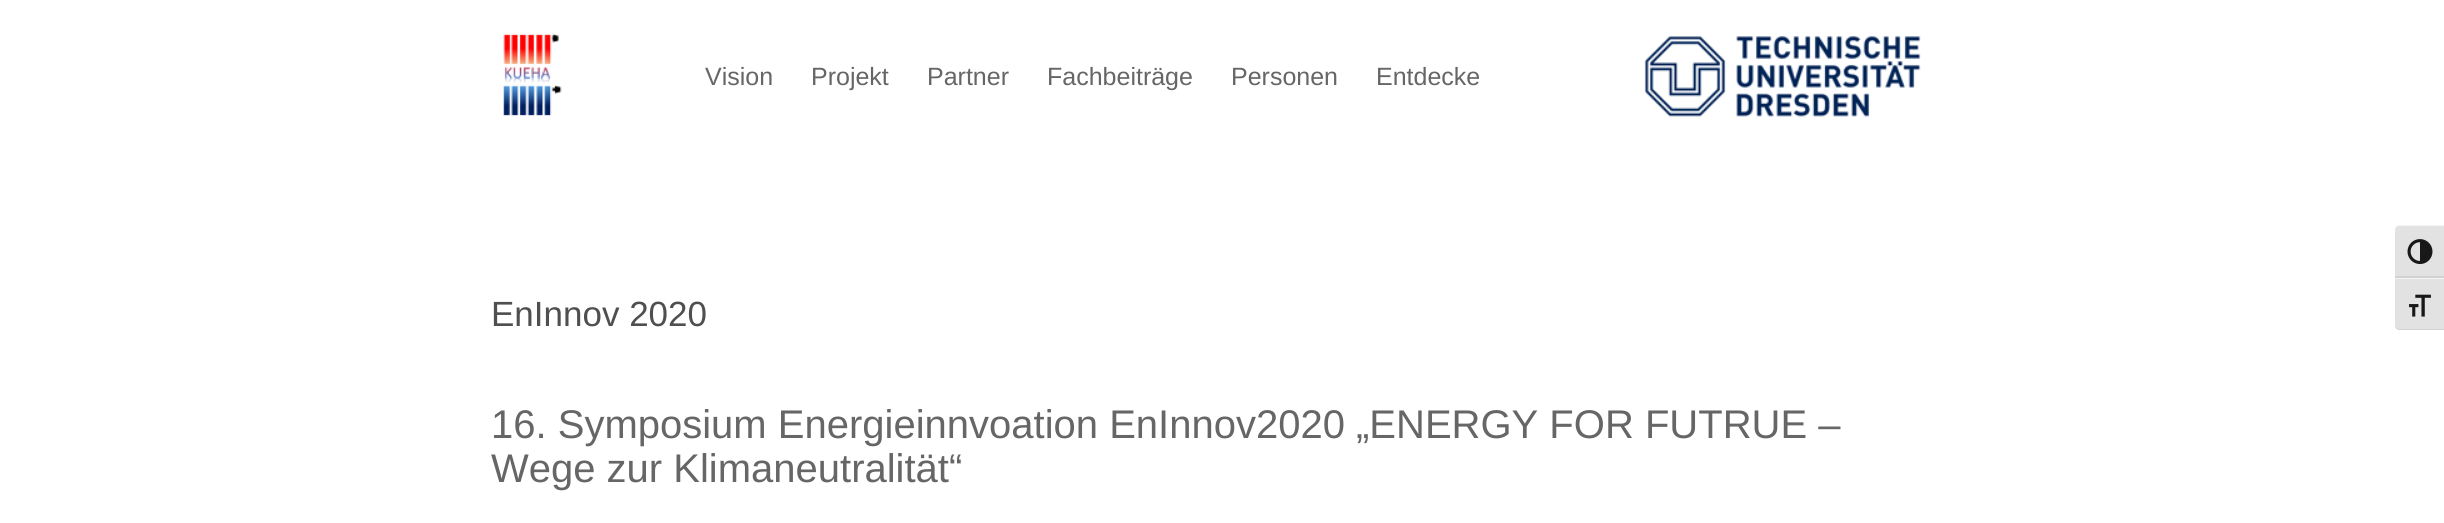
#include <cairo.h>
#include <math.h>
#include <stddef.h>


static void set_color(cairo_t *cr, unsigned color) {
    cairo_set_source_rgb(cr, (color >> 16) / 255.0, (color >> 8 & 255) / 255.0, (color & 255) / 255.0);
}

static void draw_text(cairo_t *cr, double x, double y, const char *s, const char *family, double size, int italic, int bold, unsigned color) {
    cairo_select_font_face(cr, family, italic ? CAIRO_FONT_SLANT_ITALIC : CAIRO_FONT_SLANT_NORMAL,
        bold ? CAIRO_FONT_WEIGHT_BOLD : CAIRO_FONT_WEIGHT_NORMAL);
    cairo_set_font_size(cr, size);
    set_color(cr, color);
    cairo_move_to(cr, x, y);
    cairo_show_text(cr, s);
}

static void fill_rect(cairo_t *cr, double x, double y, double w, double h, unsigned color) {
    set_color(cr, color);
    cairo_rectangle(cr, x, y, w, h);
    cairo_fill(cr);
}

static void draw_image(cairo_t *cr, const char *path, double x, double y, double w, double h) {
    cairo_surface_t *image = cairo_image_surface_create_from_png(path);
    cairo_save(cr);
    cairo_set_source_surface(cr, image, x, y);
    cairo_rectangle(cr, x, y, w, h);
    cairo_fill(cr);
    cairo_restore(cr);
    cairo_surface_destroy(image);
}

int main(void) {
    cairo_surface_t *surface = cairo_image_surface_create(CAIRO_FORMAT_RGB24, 2444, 523);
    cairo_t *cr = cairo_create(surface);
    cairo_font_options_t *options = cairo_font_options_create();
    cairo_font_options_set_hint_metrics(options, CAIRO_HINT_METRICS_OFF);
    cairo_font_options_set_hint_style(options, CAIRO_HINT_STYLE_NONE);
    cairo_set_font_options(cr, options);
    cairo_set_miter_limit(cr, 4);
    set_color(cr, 0xFFFFFF);
    cairo_paint(cr);
    draw_image(cr, "assets/img1.png", 503, 33, 59, 83);
    draw_text(cr, 705, 85, "Vision", "Liberation Sans", 25, 0, 0, 0x666666);
    draw_text(cr, 811, 85, "Projekt", "Liberation Sans", 25, 0, 0, 0x666666);
    draw_text(cr, 927, 85, "Partner", "Liberation Sans", 25, 0, 0, 0x666666);
    draw_text(cr, 1047, 85, "Fachbeiträge", "Liberation Sans", 25, 0, 0, 0x666666);
    draw_text(cr, 1231, 85, "Personen", "Liberation Sans", 25, 0, 0, 0x666666);
    draw_text(cr, 1376, 85, "Entdecke", "Liberation Sans", 25, 0, 0, 0x666666);
    draw_image(cr, "assets/img2.png", 1644, 36, 277, 81);
    set_color(cr, 0xE2E2E2);
    cairo_new_path(cr);
    cairo_move_to(cr, 2400, 225);
    cairo_line_to(cr, 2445, 225);
    cairo_line_to(cr, 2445, 278);
    cairo_line_to(cr, 2395, 278);
    cairo_line_to(cr, 2395, 230);
    cairo_curve_to(cr, 2395, 227, 2397, 225, 2400, 225);
    cairo_close_path(cr);
    cairo_fill(cr);
    set_color(cr, 0xF5F5F5);
    cairo_new_path(cr);
    cairo_move_to(cr, 2400, 226);
    cairo_line_to(cr, 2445, 226);
    cairo_line_to(cr, 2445, 225);
    cairo_line_to(cr, 2400, 225);
    cairo_curve_to(cr, 2397, 225, 2395, 227, 2395, 230);
    cairo_curve_to(cr, 2395, 228, 2397, 226, 2400, 226);
    cairo_close_path(cr);
    cairo_fill(cr);
    fill_rect(cr, 2395, 276, 49, 2, 0xD2D2D2);
    draw_image(cr, "assets/img3.png", 2407, 239, 26, 25);
    set_color(cr, 0xE2E2E2);
    cairo_new_path(cr);
    cairo_move_to(cr, 2395, 278);
    cairo_line_to(cr, 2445, 278);
    cairo_line_to(cr, 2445, 330);
    cairo_line_to(cr, 2400, 330);
    cairo_curve_to(cr, 2397, 330, 2395, 328, 2395, 325);
    cairo_close_path(cr);
    cairo_fill(cr);
    fill_rect(cr, 2395, 278, 49, 1, 0xF5F5F5);
    set_color(cr, 0xD2D2D2);
    cairo_new_path(cr);
    cairo_move_to(cr, 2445, 330);
    cairo_line_to(cr, 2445, 329);
    cairo_line_to(cr, 2400, 329);
    cairo_curve_to(cr, 2397, 329, 2395, 327, 2395, 325);
    cairo_curve_to(cr, 2395, 328, 2397, 330, 2400, 330);
    cairo_close_path(cr);
    cairo_fill(cr);
    draw_image(cr, "assets/img4.png", 2409, 294, 22, 23);
    draw_text(cr, 491, 326, "EnInnov 2020", "Liberation Sans", 35, 0, 0, 0x4F4F4F);
    draw_text(cr, 491, 438, "16. Symposium Energieinnvoation EnInnov2020 „ENERGY FOR FUTRUE –", "Liberation Sans", 40, 0, 0, 0x666666);
    draw_text(cr, 491, 482, "Wege zur Klimaneutralität“", "Liberation Sans", 40, 0, 0, 0x666666);
    cairo_surface_write_to_png(surface, "output.png");
    cairo_font_options_destroy(options);
    cairo_destroy(cr);
    cairo_surface_destroy(surface);
    return 0;
}
